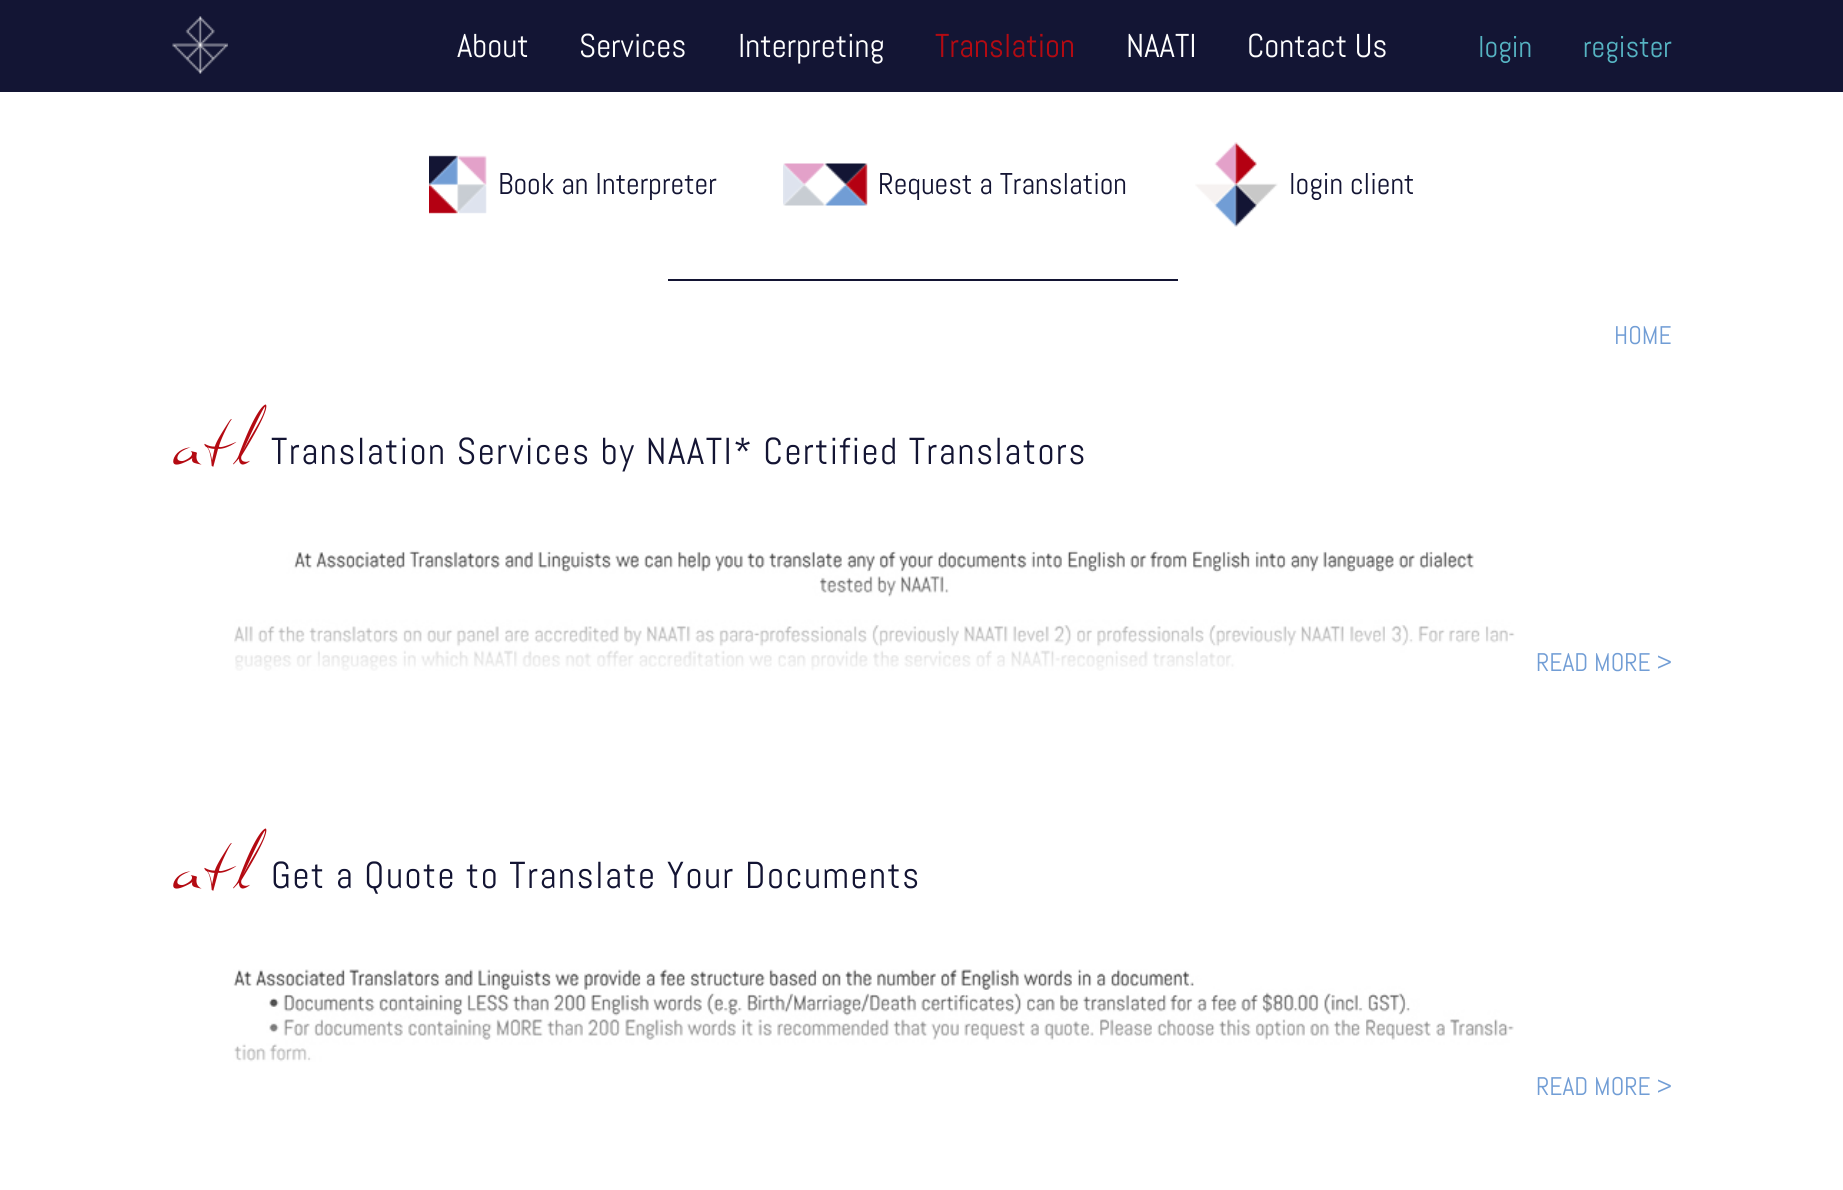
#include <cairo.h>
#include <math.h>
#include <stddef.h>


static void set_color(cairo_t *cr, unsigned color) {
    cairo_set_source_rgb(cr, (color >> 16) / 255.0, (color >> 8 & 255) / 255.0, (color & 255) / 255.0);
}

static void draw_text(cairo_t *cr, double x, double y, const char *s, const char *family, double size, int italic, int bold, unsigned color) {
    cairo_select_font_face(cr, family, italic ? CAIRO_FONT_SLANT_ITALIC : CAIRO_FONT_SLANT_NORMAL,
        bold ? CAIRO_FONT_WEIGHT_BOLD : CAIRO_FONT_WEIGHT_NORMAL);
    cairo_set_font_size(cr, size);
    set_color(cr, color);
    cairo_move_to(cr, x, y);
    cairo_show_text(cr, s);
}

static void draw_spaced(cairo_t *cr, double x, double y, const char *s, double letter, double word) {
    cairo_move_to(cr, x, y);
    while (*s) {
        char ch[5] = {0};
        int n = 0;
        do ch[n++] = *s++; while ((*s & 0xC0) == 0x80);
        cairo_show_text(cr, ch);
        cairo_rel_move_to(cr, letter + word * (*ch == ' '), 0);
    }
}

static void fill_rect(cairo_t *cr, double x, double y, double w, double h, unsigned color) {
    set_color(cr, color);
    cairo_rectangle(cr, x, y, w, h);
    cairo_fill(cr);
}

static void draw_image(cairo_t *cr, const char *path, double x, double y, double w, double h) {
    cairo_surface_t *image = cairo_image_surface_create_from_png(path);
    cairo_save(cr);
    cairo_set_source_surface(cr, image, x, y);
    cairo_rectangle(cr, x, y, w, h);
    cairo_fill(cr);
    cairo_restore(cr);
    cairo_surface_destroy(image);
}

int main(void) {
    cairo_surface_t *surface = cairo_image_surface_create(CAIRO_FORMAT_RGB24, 1843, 1190);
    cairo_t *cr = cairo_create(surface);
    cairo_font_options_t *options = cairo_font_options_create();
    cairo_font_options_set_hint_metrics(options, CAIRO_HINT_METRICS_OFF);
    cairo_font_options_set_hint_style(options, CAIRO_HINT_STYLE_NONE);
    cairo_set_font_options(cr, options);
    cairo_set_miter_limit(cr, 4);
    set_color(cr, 0xFFFFFF);
    cairo_paint(cr);
    fill_rect(cr, 0, 0, 1843, 92, 0x131534);
    draw_image(cr, "assets/img1.png", 172, 16, 56, 58);
    draw_text(cr, 457, 57, "About", "Abel", 33, 0, 0, 0xFFFFFF);
    draw_text(cr, 579, 57, "Services", "Abel", 33, 0, 0, 0xFFFFFF);
    draw_text(cr, 738, 57, "Interpreting", "Abel", 33, 0, 0, 0xFFFFFF);
    draw_text(cr, 935, 57, "Translation", "Abel", 33, 0, 0, 0xB40A12);
    draw_text(cr, 1126, 57, "NAATI", "Abel", 33, 0, 0, 0xFFFFFF);
    draw_text(cr, 1247, 57, "Contact Us", "Abel", 33, 0, 0, 0xFFFFFF);
    draw_text(cr, 1478, 57, "login", "Abel", 30, 0, 0, 0x56B4C3);
    draw_text(cr, 1583, 57, "register", "Abel", 30, 0, 0, 0x56B4C3);
    draw_image(cr, "assets/img2.png", 429, 155, 58, 59);
    draw_text(cr, 498, 194, "Book an Interpreter", "Abel", 30, 0, 0, 0x131433);
    draw_image(cr, "assets/img3.png", 783, 163, 85, 43);
    draw_text(cr, 878, 194, "Request a Translation", "Abel", 30, 0, 0, 0x131433);
    draw_image(cr, "assets/img4.png", 1195, 142, 83, 85);
    draw_text(cr, 1289, 194, "login client", "Abel", 30, 0, 0, 0x131433);
    fill_rect(cr, 668, 279, 510, 2, 0x131433);
    draw_text(cr, 1614, 344, "HOME", "Abel", 25.5, 0, 0, 0x719DD5);
    cairo_select_font_face(cr, "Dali", CAIRO_FONT_SLANT_NORMAL, CAIRO_FONT_WEIGHT_NORMAL);
    cairo_set_font_size(cr, 60);
    set_color(cr, 0xB40A12);
    draw_spaced(cr, 172, 464, "atl", 1.5, 0);
    cairo_select_font_face(cr, "Abel", CAIRO_FONT_SLANT_NORMAL, CAIRO_FONT_WEIGHT_NORMAL);
    cairo_set_font_size(cr, 37.5);
    set_color(cr, 0x131433);
    draw_spaced(cr, 271, 464, "Translation Services by NAATI* Certified Translators", 1.5, 0);
    draw_image(cr, "assets/img5.png", 234, 550, 1281, 121);
    draw_text(cr, 1536, 671, "READ MORE >", "Abel", 25.5, 0, 0, 0x719DD5);
    cairo_select_font_face(cr, "Dali", CAIRO_FONT_SLANT_NORMAL, CAIRO_FONT_WEIGHT_NORMAL);
    cairo_set_font_size(cr, 60);
    set_color(cr, 0xB40A12);
    draw_spaced(cr, 172, 888, "atl", 1.5, 0);
    cairo_select_font_face(cr, "Abel", CAIRO_FONT_SLANT_NORMAL, CAIRO_FONT_WEIGHT_NORMAL);
    cairo_set_font_size(cr, 37.5);
    set_color(cr, 0x131433);
    draw_spaced(cr, 271, 888, "Get a Quote to Translate Your Documents", 1.5, 0);
    draw_image(cr, "assets/img6.png", 233, 969, 1281, 93);
    draw_text(cr, 1536, 1095, "READ MORE >", "Abel", 25.5, 0, 0, 0x719DD5);
    cairo_surface_write_to_png(surface, "output.png");
    cairo_font_options_destroy(options);
    cairo_destroy(cr);
    cairo_surface_destroy(surface);
    return 0;
}
